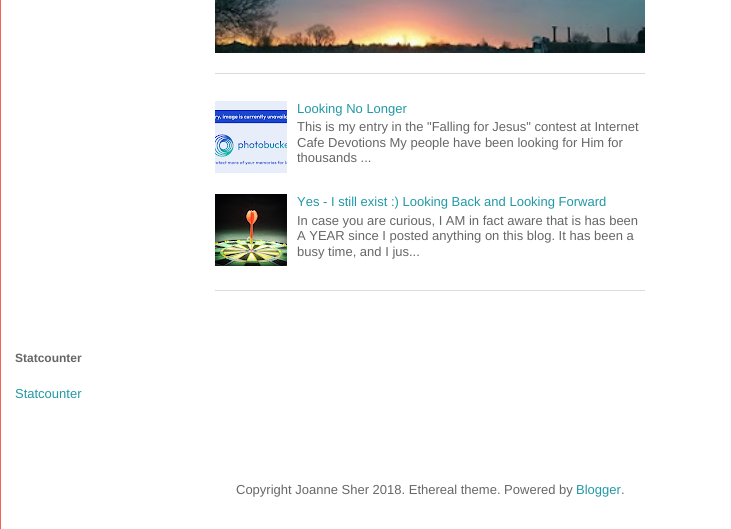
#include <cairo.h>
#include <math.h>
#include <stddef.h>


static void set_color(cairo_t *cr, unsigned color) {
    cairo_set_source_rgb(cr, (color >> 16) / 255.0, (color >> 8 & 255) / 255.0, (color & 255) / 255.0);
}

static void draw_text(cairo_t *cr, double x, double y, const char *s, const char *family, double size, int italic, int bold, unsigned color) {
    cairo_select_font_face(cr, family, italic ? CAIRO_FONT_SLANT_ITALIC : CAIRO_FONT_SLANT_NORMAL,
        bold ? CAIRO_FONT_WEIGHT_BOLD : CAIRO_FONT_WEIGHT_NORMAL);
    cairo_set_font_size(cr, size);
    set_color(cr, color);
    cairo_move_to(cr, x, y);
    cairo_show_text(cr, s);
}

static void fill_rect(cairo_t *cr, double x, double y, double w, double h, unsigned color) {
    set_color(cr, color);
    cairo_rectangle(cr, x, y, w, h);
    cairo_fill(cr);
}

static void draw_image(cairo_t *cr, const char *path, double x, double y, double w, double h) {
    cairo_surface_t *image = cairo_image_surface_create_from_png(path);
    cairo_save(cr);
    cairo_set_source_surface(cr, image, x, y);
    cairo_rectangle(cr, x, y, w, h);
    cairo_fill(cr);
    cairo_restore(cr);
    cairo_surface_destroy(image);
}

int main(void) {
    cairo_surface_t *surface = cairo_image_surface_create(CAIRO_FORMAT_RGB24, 731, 529);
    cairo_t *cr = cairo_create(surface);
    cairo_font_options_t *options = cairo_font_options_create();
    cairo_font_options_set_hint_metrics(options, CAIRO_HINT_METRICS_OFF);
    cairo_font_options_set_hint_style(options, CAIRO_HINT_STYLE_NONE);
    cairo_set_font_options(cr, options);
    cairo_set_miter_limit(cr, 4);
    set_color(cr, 0xFFFFFF);
    cairo_paint(cr);
    fill_rect(cr, 0, 0, 1, 529, 0xFB5E53);
    fill_rect(cr, 215, 73, 430, 1, 0xDBDBDB);
    draw_image(cr, "assets/img1.png", 215, 0, 430, 53);
    fill_rect(cr, 215, 290, 430, 1, 0xDBDBDB);
    draw_image(cr, "assets/img2.png", 215, 101, 72, 72);
    draw_text(cr, 297, 113, "Looking No Longer", "Liberation Sans", 13, 0, 0, 0x2198A6);
    draw_text(cr, 297, 131, "This is my entry in the \"Falling for Jesus\" contest at Internet", "Liberation Sans", 13, 0, 0, 0x666666);
    draw_text(cr, 297, 147, "Cafe Devotions My people have been looking for Him for", "Liberation Sans", 13, 0, 0, 0x666666);
    draw_text(cr, 297, 162, "thousands ...", "Liberation Sans", 13, 0, 0, 0x666666);
    draw_image(cr, "assets/img3.png", 215, 194, 72, 72);
    draw_text(cr, 297, 206, "Yes - I still exist :) Looking Back and Looking Forward", "Liberation Sans", 13, 0, 0, 0x2198A6);
    draw_text(cr, 297, 225, "In case you are curious, I AM in fact aware that is has been", "Liberation Sans", 13, 0, 0, 0x666666);
    draw_text(cr, 297, 240, "A YEAR since I posted anything on this blog. It has been a", "Liberation Sans", 13, 0, 0, 0x666666);
    draw_text(cr, 297, 256, "busy time, and I jus...", "Liberation Sans", 13, 0, 0, 0x666666);
    draw_text(cr, 15, 362, "Statcounter", "Liberation Sans", 12, 0, 1, 0x666666);
    draw_text(cr, 15, 398, "Statcounter", "Liberation Sans", 13, 0, 0, 0x2198A6);
    draw_text(cr, 236, 494, "Copyright Joanne Sher 2018. Ethereal theme. Powered by", "Liberation Sans", 13, 0, 0, 0x666666);
    draw_text(cr, 576, 494, "Blogger", "Liberation Sans", 13, 0, 0, 0x2198A6);
    draw_text(cr, 621, 494, ".", "Liberation Sans", 13, 0, 0, 0x666666);
    cairo_surface_write_to_png(surface, "output.png");
    cairo_font_options_destroy(options);
    cairo_destroy(cr);
    cairo_surface_destroy(surface);
    return 0;
}
